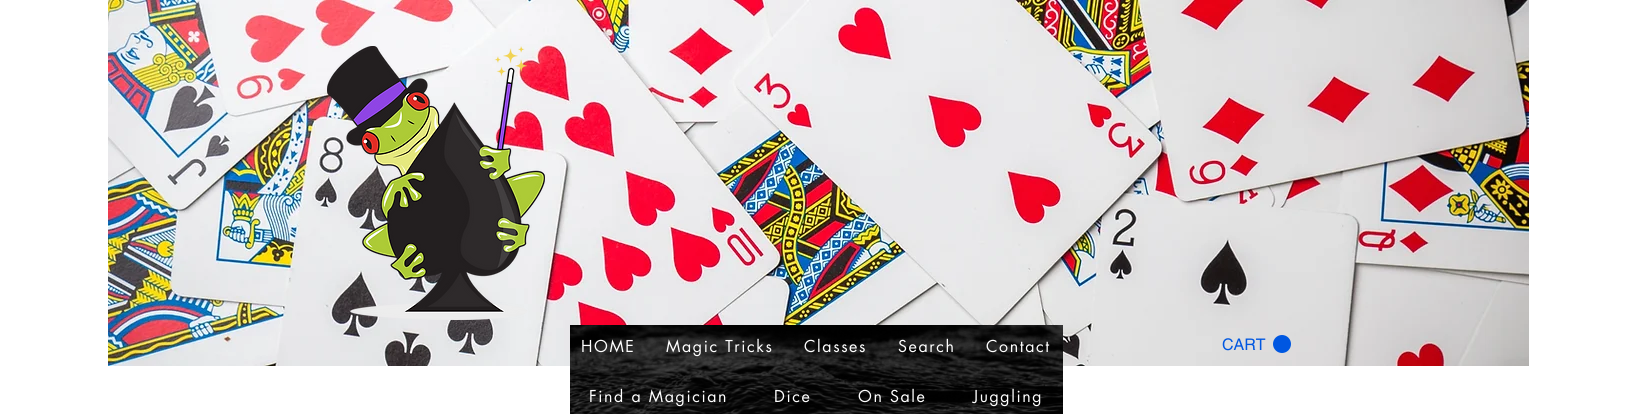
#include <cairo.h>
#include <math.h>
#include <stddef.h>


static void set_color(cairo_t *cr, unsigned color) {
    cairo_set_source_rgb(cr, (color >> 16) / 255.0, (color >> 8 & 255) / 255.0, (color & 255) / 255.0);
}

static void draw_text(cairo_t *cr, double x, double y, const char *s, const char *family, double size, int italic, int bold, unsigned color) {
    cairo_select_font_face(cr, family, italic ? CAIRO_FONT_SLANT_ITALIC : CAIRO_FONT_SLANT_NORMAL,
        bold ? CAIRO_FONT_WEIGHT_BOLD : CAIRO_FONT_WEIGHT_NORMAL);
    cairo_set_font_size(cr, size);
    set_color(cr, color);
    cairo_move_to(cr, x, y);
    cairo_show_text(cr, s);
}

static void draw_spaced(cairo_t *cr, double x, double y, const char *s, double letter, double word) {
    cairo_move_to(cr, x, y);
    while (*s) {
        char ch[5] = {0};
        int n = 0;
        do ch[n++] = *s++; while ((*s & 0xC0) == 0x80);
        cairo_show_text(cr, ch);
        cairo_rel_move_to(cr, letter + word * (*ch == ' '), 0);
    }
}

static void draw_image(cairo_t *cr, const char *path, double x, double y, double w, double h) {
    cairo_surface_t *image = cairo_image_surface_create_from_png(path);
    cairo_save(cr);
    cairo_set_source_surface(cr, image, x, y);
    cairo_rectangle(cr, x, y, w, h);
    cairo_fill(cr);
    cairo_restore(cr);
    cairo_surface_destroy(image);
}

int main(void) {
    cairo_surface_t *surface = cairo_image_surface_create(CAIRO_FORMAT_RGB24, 1633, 414);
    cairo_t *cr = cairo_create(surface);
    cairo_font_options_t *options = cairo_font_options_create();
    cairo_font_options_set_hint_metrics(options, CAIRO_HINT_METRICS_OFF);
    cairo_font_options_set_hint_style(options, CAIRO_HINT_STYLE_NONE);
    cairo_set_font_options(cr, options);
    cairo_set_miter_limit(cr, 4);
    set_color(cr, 0xFFFFFF);
    cairo_paint(cr);
    draw_image(cr, "assets/img1.png", 108, 0, 1421, 366);
    draw_image(cr, "assets/img2.png", 327, 46, 218, 274);
    draw_image(cr, "assets/img3.png", 570, 325, 493, 89);
    cairo_select_font_face(cr, "futura", CAIRO_FONT_SLANT_NORMAL, CAIRO_FONT_WEIGHT_NORMAL);
    cairo_set_font_size(cr, 16);
    set_color(cr, 0xFFFFFF);
    draw_spaced(cr, 581, 352, "HOME", 1.6, 0);
    draw_spaced(cr, 666, 352, "Magic Tricks", 1.6, 0);
    draw_spaced(cr, 804, 352, "Classes", 1.6, 0);
    draw_spaced(cr, 898, 352, "Search", 1.6, 0);
    draw_spaced(cr, 986, 352, "Contact", 1.6, 0);
    draw_spaced(cr, 589, 402, "Find a Magician", 1.6, 0);
    draw_spaced(cr, 774, 402, "Dice", 1.6, 0);
    draw_spaced(cr, 858, 402, "On Sale", 1.6, 0);
    draw_spaced(cr, 973, 402, "Juggling", 1.6, 0);
    set_color(cr, 0x0057E1);
    cairo_new_path(cr);
    cairo_arc(cr, 1282, 344, 9, 0, 2 * M_PI);
    cairo_fill(cr);
    draw_text(cr, 1222, 350, "CART", "helvetica", 16, 0, 0, 0x0057E1);
    cairo_surface_write_to_png(surface, "output.png");
    cairo_font_options_destroy(options);
    cairo_destroy(cr);
    cairo_surface_destroy(surface);
    return 0;
}
